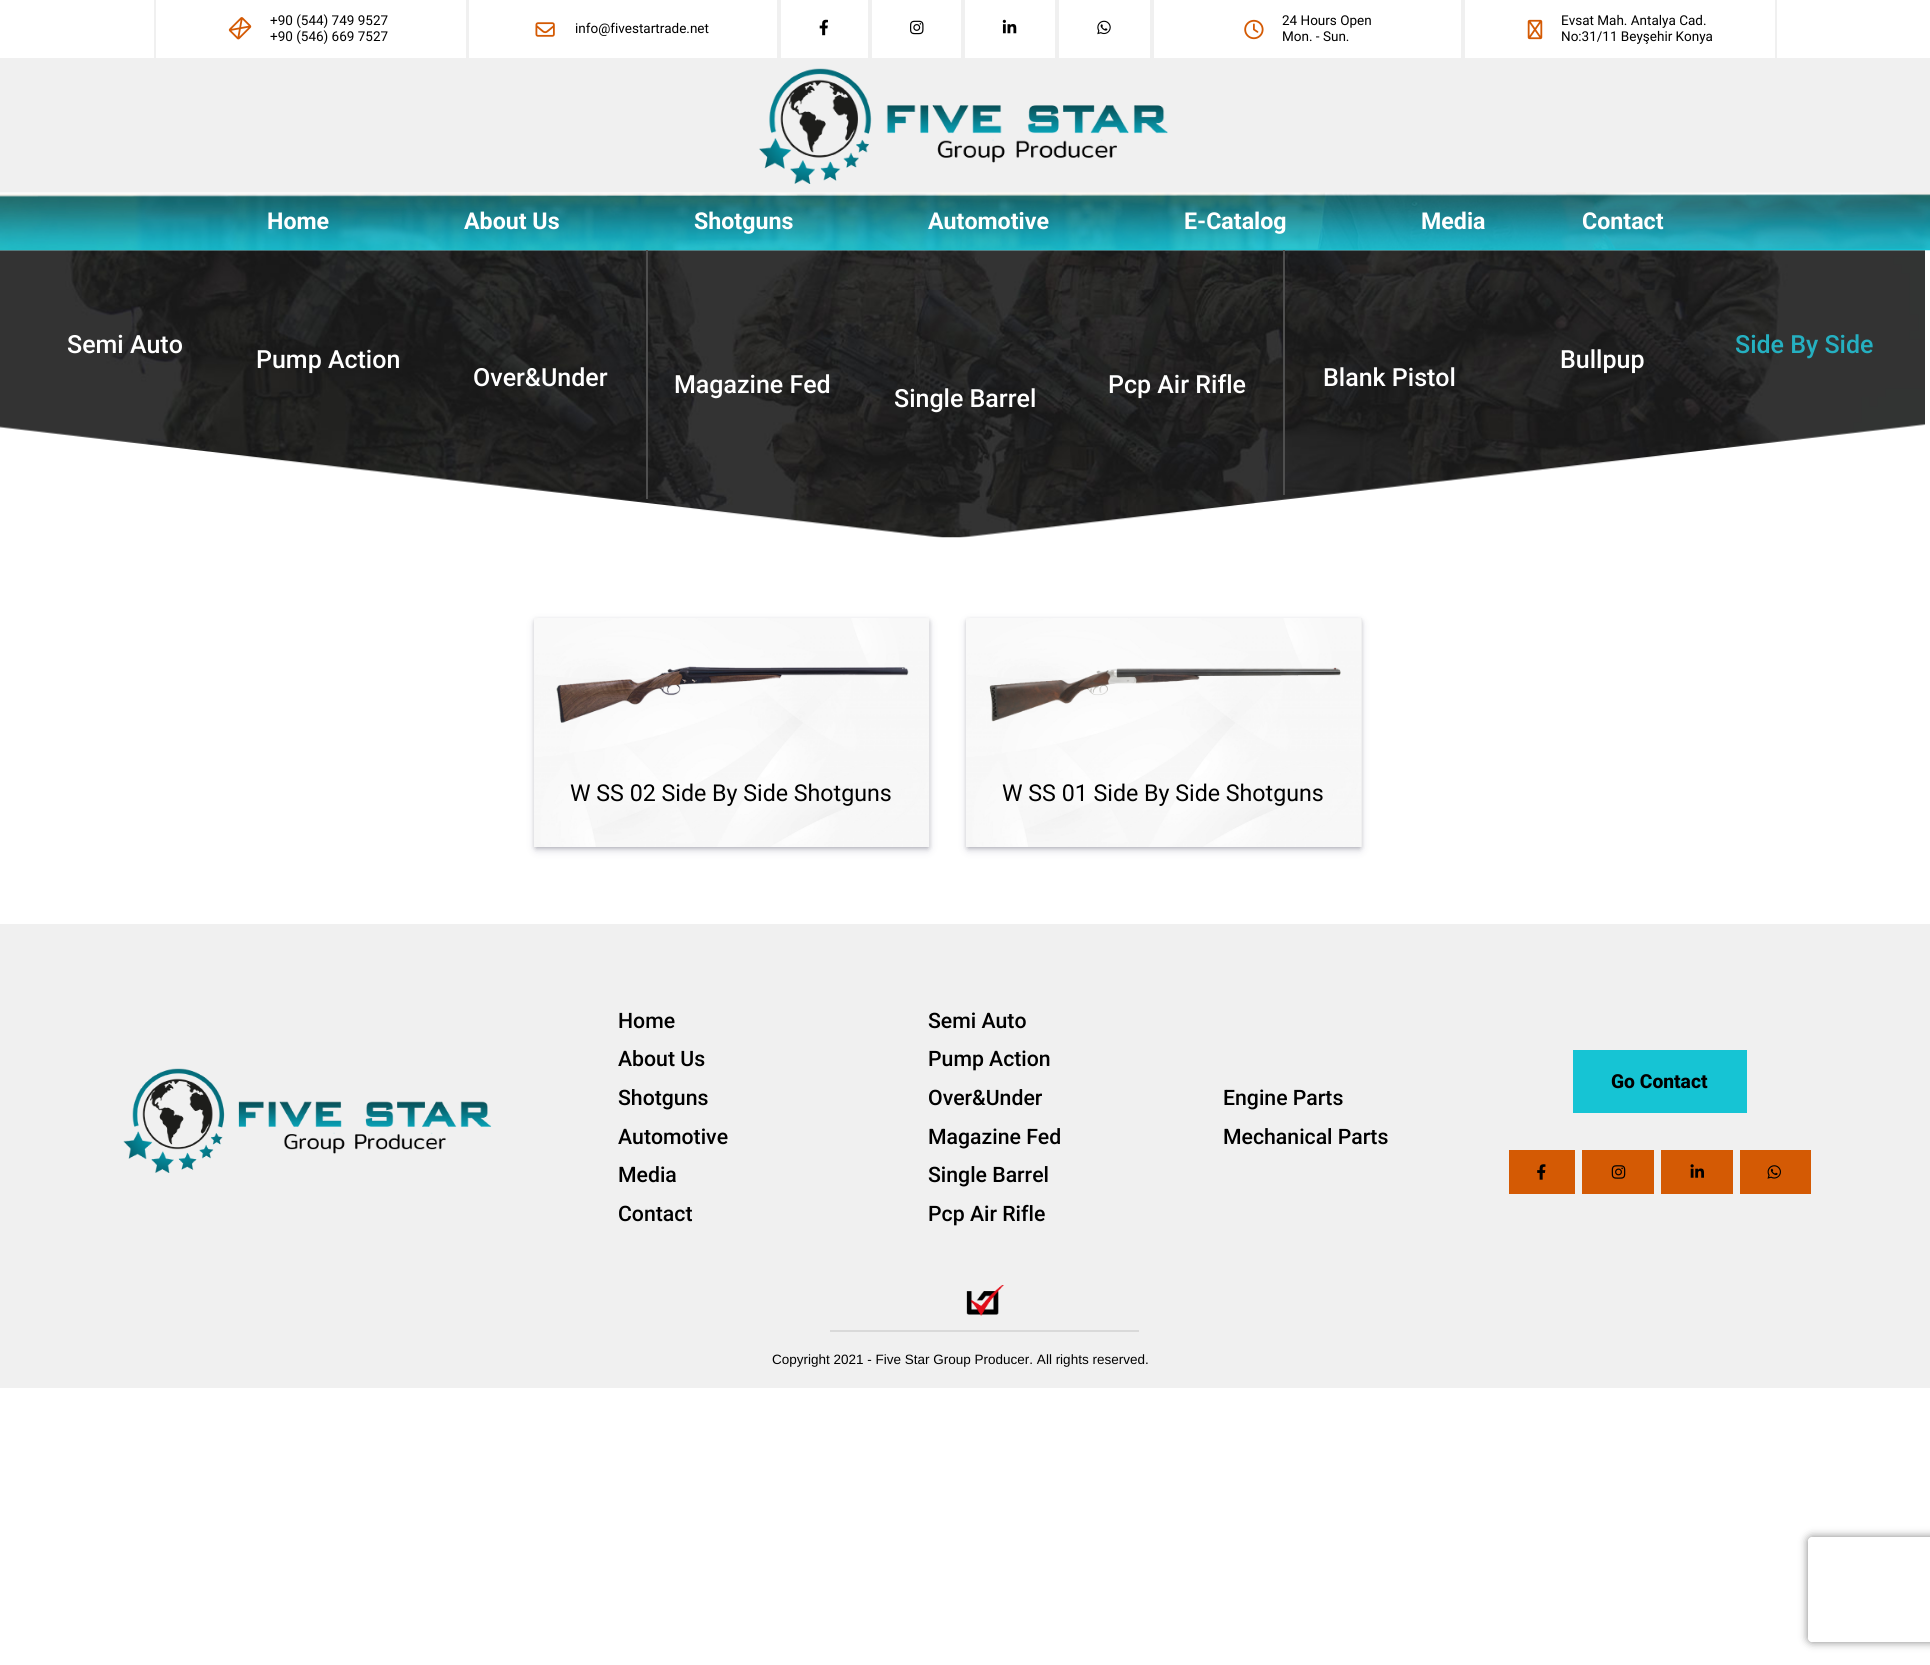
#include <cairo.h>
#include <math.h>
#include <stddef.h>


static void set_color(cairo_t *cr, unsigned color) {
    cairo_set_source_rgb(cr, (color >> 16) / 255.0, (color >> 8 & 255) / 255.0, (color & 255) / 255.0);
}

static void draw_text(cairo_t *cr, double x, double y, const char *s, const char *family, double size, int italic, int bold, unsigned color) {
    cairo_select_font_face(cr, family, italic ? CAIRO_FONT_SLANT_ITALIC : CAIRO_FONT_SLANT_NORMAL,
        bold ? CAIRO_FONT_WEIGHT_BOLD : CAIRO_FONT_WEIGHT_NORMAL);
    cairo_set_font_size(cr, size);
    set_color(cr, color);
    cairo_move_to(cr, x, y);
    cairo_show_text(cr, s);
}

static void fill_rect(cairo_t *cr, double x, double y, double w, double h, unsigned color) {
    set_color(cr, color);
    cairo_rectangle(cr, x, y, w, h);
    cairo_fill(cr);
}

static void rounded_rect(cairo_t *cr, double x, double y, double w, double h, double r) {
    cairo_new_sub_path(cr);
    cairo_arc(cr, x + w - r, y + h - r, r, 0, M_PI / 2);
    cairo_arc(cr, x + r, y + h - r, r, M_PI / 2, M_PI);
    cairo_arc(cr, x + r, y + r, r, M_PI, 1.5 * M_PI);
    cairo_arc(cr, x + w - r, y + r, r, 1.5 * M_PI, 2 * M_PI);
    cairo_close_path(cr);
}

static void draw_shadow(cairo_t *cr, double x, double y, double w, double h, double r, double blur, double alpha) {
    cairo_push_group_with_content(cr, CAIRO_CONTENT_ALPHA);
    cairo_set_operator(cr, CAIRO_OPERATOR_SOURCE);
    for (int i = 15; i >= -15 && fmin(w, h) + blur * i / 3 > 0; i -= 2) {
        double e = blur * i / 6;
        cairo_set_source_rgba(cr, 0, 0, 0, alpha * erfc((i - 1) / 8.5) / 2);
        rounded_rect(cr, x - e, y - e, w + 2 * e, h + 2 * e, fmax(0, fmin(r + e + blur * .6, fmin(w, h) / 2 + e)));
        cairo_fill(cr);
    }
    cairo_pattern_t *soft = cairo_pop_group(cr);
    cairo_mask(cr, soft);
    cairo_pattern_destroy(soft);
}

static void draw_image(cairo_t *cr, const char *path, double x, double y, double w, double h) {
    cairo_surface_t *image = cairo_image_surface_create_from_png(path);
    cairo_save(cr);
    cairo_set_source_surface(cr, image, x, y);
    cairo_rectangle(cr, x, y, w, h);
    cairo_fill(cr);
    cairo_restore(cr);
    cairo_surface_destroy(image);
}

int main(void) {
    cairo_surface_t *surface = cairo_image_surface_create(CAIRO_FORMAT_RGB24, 1930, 1665);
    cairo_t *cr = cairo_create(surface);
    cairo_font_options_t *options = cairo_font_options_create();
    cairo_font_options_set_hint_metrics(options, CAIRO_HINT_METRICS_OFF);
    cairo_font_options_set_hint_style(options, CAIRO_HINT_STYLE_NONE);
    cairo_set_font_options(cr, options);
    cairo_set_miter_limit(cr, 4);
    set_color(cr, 0xFFFFFF);
    cairo_paint(cr);
    fill_rect(cr, 466, 0, 3, 58, 0xF0F0F0);
    fill_rect(cr, 154, 0, 2, 58, 0xF0F0F0);
    draw_image(cr, "assets/img1.png", 228, 17, 24, 23);
    draw_text(cr, 270, 25, "+90 (544) 749 9527", "Roboto", 13.5, 0, 0, 0x000000);
    draw_text(cr, 270, 41, "+90 (546) 669 7527", "Roboto", 13.5, 0, 0, 0x000000);
    fill_rect(cr, 777, 0, 4, 58, 0xF0F0F0);
    draw_image(cr, "assets/img2.png", 535, 22, 20, 15);
    draw_text(cr, 575, 33, "info@fivestartrade.net", "Roboto", 13.5, 0, 0, 0x000000);
    fill_rect(cr, 868, 0, 4, 58, 0xF0F0F0);
    draw_image(cr, "assets/img3.png", 819, 19, 9, 17);
    fill_rect(cr, 961, 0, 4, 58, 0xF0F0F0);
    draw_image(cr, "assets/img4.png", 910, 20, 14, 15);
    fill_rect(cr, 1055, 0, 4, 58, 0xF0F0F0);
    draw_image(cr, "assets/img5.png", 1002, 19, 15, 15);
    fill_rect(cr, 1150, 0, 4, 58, 0xF0F0F0);
    draw_image(cr, "assets/img6.png", 1097, 20, 14, 15);
    fill_rect(cr, 1461, 0, 4, 58, 0xF0F0F0);
    draw_image(cr, "assets/img7.png", 1244, 19, 20, 21);
    draw_text(cr, 1282, 25, "24 Hours Open", "Roboto", 13.5, 0, 0, 0x000000);
    draw_text(cr, 1282, 41, "Mon. - Sun.", "Roboto", 13.5, 0, 0, 0x000000);
    fill_rect(cr, 1775, 0, 2, 58, 0xF0F0F0);
    draw_image(cr, "assets/img8.png", 1527, 19, 16, 21);
    draw_text(cr, 1561, 25, "Evsat Mah. Antalya Cad.", "Roboto", 13.5, 0, 0, 0x000000);
    draw_text(cr, 1561, 41, "No:31/11 Beyşehir Konya", "Roboto", 13.5, 0, 0, 0x000000);
    fill_rect(cr, 0, 58, 1930, 135, 0xF0F0F0);
    draw_image(cr, "assets/img9.png", 759, 68, 409, 116);
    draw_image(cr, "assets/img11.png", 0, 250, 1925, 288);
    draw_image(cr, "assets/img10.png", 0, 192, 1930, 59);
    draw_text(cr, 267, 229, "Home", "Roboto", 23.2, 0, 1, 0xFFFFFF);
    draw_text(cr, 464, 229, "About Us", "Roboto", 23.2, 0, 1, 0xFFFFFF);
    draw_text(cr, 694, 229, "Shotguns", "Roboto", 23.2, 0, 1, 0xFFFFFF);
    draw_text(cr, 928, 229, "Automotive", "Roboto", 23.2, 0, 1, 0xFFFFFF);
    draw_text(cr, 1184, 229, "E-Catalog", "Roboto", 23.2, 0, 1, 0xFFFFFF);
    draw_text(cr, 1421, 229, "Media", "Roboto", 23.2, 0, 1, 0xFFFFFF);
    draw_text(cr, 1582, 229, "Contact", "Roboto", 23.2, 0, 1, 0xFFFFFF);
    draw_text(cr, 67, 353, "Semi Auto", "Roboto Medium", 25, 0, 0, 0xFFFFFF);
    fill_rect(cr, 646, 250, 2, 249, 0x4F4F4F);
    fill_rect(cr, 1283, 250, 2, 245, 0x4F4F4F);
    draw_text(cr, 1735, 353, "Side By Side", "Roboto Medium", 25, 0, 0, 0x25B0C1);
    draw_text(cr, 256, 368, "Pump Action", "Roboto Medium", 25, 0, 0, 0xFFFFFF);
    draw_text(cr, 1560, 368, "Bullpup", "Roboto Medium", 25, 0, 0, 0xFFFFFF);
    draw_text(cr, 473, 386, "Over&Under", "Roboto Medium", 25, 0, 0, 0xFFFFFF);
    draw_text(cr, 674, 393, "Magazine Fed", "Roboto Medium", 25, 0, 0, 0xFFFFFF);
    draw_text(cr, 894, 407, "Single Barrel", "Roboto Medium", 25, 0, 0, 0xFFFFFF);
    draw_text(cr, 1108, 393, "Pcp Air Rifle", "Roboto Medium", 25, 0, 0, 0xFFFFFF);
    draw_text(cr, 1323, 386, "Blank Pistol", "Roboto Medium", 25, 0, 0, 0xFFFFFF);
    set_color(cr, 0x000000);
    draw_shadow(cr, 536, 621, 392, 226, 0, 2.5, 0.3);
    set_color(cr, 0x32325D);
    draw_shadow(cr, 536, 623, 392, 226, 0, 4.5, 0.25);
    draw_image(cr, "assets/img12.png", 534, 618, 396, 229);
    draw_image(cr, "assets/img13.png", 556, 666, 353, 57);
    draw_text(cr, 570, 801, "W SS 02 Side By Side Shotguns", "Roboto", 23.2, 0, 0, 0x000000);
    set_color(cr, 0x000000);
    draw_shadow(cr, 968, 621, 392, 226, 0, 2.5, 0.3);
    set_color(cr, 0x32325D);
    draw_shadow(cr, 968, 623, 392, 226, 0, 4.5, 0.25);
    fill_rect(cr, 1361, 618, 1, 229, 0xF0F0F0);
    draw_image(cr, "assets/img14.png", 966, 618, 395, 229);
    draw_image(cr, "assets/img15.png", 989, 667, 352, 55);
    draw_text(cr, 1002, 801, "W SS 01 Side By Side Shotguns", "Roboto", 23.2, 0, 0, 0x000000);
    fill_rect(cr, 0, 924, 1930, 464, 0xF0F0F0);
    draw_image(cr, "assets/img16.png", 123, 1068, 369, 105);
    draw_text(cr, 618, 1028, "Home", "Roboto Medium", 21.25, 0, 0, 0x000000);
    draw_text(cr, 618, 1066, "About Us", "Roboto Medium", 21.25, 0, 0, 0x000000);
    draw_text(cr, 618, 1105, "Shotguns", "Roboto Medium", 21.25, 0, 0, 0x000000);
    draw_text(cr, 618, 1144, "Automotive", "Roboto Medium", 21.25, 0, 0, 0x000000);
    draw_text(cr, 618, 1182, "Media", "Roboto Medium", 21.25, 0, 0, 0x000000);
    draw_text(cr, 618, 1221, "Contact", "Roboto Medium", 21.25, 0, 0, 0x000000);
    draw_text(cr, 928, 1028, "Semi Auto", "Roboto Medium", 21.25, 0, 0, 0x000000);
    draw_text(cr, 928, 1066, "Pump Action", "Roboto Medium", 21.25, 0, 0, 0x000000);
    draw_text(cr, 928, 1105, "Over&Under", "Roboto Medium", 21.25, 0, 0, 0x000000);
    draw_text(cr, 928, 1144, "Magazine Fed", "Roboto Medium", 21.25, 0, 0, 0x000000);
    draw_text(cr, 928, 1182, "Single Barrel", "Roboto Medium", 21.25, 0, 0, 0x000000);
    draw_text(cr, 928, 1221, "Pcp Air Rifle", "Roboto Medium", 21.25, 0, 0, 0x000000);
    fill_rect(cr, 1573, 1050, 174, 63, 0x16C4D4);
    draw_text(cr, 1611, 1088, "Go Contact", "Roboto ExtraBold", 19.25, 0, 0, 0x000000);
    fill_rect(cr, 1509, 1150, 66, 44, 0xD45A04);
    draw_image(cr, "assets/img17.png", 1537, 1164, 9, 16);
    fill_rect(cr, 1582, 1150, 72, 44, 0xD45A04);
    draw_image(cr, "assets/img18.png", 1611, 1165, 15, 14);
    fill_rect(cr, 1661, 1150, 72, 44, 0xD45A04);
    draw_image(cr, "assets/img19.png", 1690, 1164, 14, 14);
    fill_rect(cr, 1740, 1150, 71, 44, 0xD45A04);
    draw_image(cr, "assets/img20.png", 1767, 1165, 14, 14);
    draw_text(cr, 1223, 1105, "Engine Parts", "Roboto Medium", 21.25, 0, 0, 0x000000);
    draw_text(cr, 1223, 1144, "Mechanical Parts", "Roboto Medium", 21.25, 0, 0, 0x000000);
    draw_image(cr, "assets/img21.png", 966, 1285, 38, 31);
    fill_rect(cr, 830, 1330, 309, 2, 0xD9D9D9);
    draw_text(cr, 772, 1364, "Copyright 2021 - Five Star Group Producer. All rights reserved.", "Liberation Sans", 13.5, 0, 0, 0x000000);
    cairo_save(cr);
    cairo_set_fill_rule(cr, CAIRO_FILL_RULE_EVEN_ODD);
    cairo_new_path(cr);
    cairo_move_to(cr, 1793, 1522);
    cairo_line_to(cr, 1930, 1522);
    cairo_line_to(cr, 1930, 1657);
    cairo_line_to(cr, 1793, 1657);
    cairo_close_path(cr);
    cairo_move_to(cr, 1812, 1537);
    cairo_line_to(cr, 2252, 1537);
    cairo_curve_to(cr, 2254, 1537, 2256, 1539, 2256, 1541);
    cairo_line_to(cr, 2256, 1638);
    cairo_curve_to(cr, 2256, 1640, 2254, 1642, 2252, 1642);
    cairo_line_to(cr, 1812, 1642);
    cairo_curve_to(cr, 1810, 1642, 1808, 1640, 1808, 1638);
    cairo_line_to(cr, 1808, 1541);
    cairo_curve_to(cr, 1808, 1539, 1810, 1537, 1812, 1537);
    cairo_close_path(cr);
    cairo_clip(cr);
    set_color(cr, 0x808080);
    draw_shadow(cr, 1808, 1537, 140, 105, 4, 4.5, 1);
    cairo_restore(cr);
    cairo_surface_write_to_png(surface, "output.png");
    cairo_font_options_destroy(options);
    cairo_destroy(cr);
    cairo_surface_destroy(surface);
    return 0;
}
